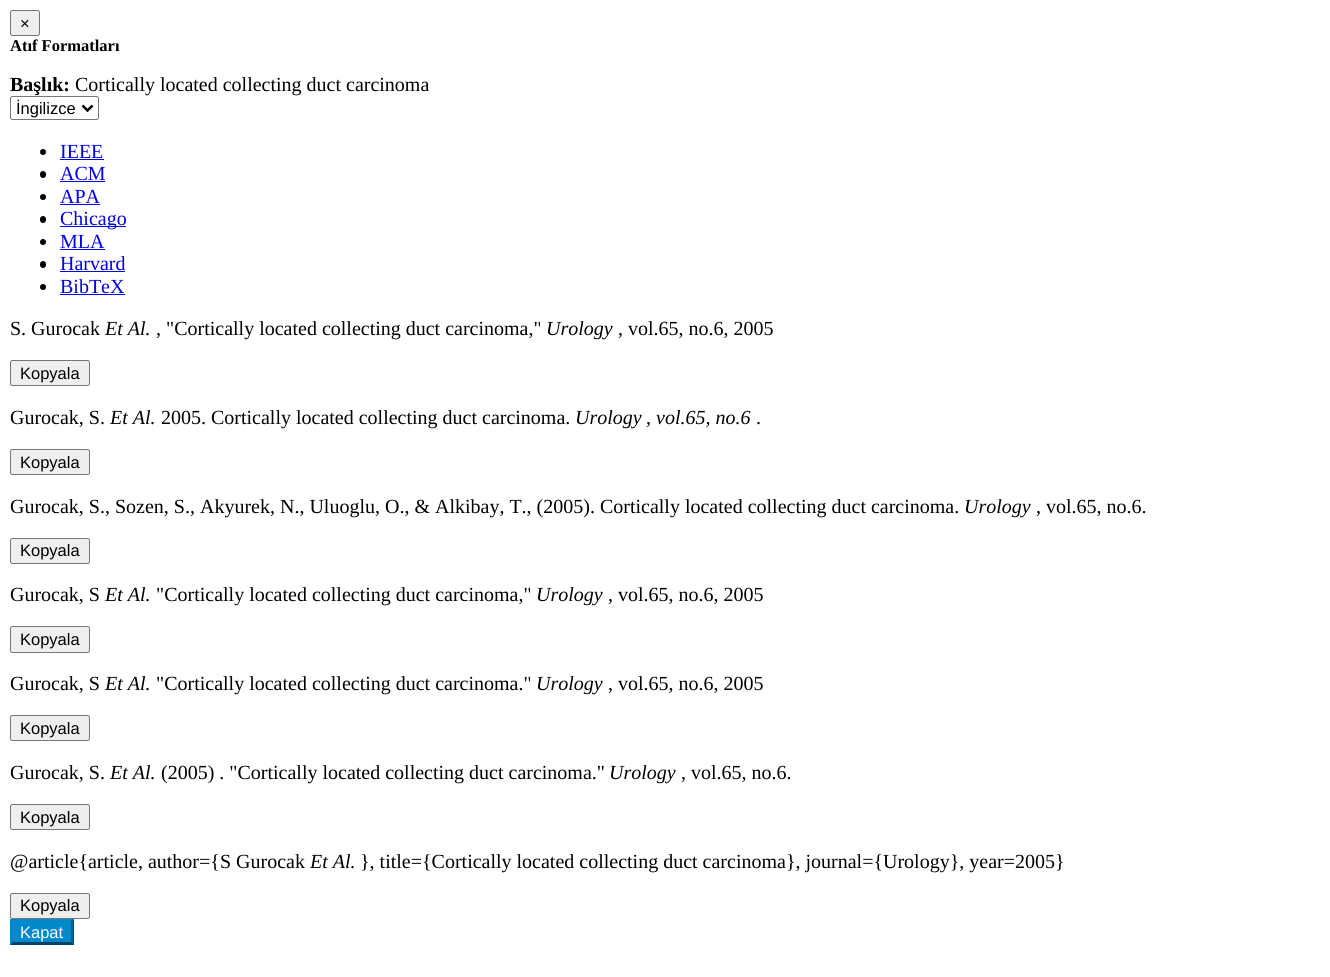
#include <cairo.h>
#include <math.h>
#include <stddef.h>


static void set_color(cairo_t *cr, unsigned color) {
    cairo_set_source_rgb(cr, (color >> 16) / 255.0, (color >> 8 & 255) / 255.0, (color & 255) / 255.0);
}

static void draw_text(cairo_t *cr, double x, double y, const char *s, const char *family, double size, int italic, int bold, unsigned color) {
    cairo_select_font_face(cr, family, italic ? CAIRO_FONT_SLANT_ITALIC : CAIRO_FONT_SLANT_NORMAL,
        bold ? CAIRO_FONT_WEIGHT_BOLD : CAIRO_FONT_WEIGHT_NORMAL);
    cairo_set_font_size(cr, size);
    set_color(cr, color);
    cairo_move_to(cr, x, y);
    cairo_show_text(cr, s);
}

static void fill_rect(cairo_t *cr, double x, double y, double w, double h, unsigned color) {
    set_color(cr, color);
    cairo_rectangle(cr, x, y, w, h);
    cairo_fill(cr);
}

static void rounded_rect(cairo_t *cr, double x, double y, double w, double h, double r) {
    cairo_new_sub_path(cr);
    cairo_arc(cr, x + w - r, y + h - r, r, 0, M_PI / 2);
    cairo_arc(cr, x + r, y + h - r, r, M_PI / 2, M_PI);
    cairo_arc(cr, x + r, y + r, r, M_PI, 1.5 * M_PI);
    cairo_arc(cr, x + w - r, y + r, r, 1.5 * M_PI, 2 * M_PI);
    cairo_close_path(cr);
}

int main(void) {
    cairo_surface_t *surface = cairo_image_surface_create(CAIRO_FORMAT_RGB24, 1330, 977);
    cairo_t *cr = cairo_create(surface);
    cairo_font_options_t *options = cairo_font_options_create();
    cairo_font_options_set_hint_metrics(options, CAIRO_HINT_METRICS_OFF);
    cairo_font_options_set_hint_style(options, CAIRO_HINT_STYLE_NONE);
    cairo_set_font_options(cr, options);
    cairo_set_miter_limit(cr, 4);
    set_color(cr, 0xFFFFFF);
    cairo_paint(cr);
    set_color(cr, 0xEFEFEF);
    rounded_rect(cr, 10.5, 10.5, 29, 25, 2);
    cairo_fill_preserve(cr);
    set_color(cr, 0x767676);
    cairo_set_line_width(cr, 1);
    cairo_stroke(cr);
    draw_text(cr, 20, 29, "×", "Liberation Sans", 16.5, 0, 0, 0x000000);
    draw_text(cr, 10, 51, "Atıf Formatları", "Liberation Serif", 16.5, 0, 1, 0x000000);
    draw_text(cr, 10, 91, "Başlık:", "Liberation Serif", 20, 0, 1, 0x000000);
    draw_text(cr, 75, 91, "Cortically located collecting duct carcinoma", "Liberation Serif", 20, 0, 0, 0x000000);
    rounded_rect(cr, 10.5, 96.5, 88, 23, 2);
    set_color(cr, 0x767676);
    cairo_stroke(cr);
    cairo_new_path(cr);
    cairo_move_to(cr, 82.5, 105.5);
    cairo_line_to(cr, 87.5, 110.5);
    cairo_line_to(cr, 92.5, 105.5);
    set_color(cr, 0x000000);
    cairo_set_line_width(cr, 2.5);
    cairo_stroke(cr);
    draw_text(cr, 16, 114, "İngilizce", "Liberation Sans", 16.5, 0, 0, 0x000000);
    cairo_new_path(cr);
    cairo_arc(cr, 43, 152, 3, 0, 2 * M_PI);
    cairo_fill(cr);
    draw_text(cr, 60, 158, "IEEE", "Liberation Serif", 20, 0, 0, 0x0000EE);
    fill_rect(cr, 60, 159, 44, 1, 0x0000EE);
    set_color(cr, 0x000000);
    rounded_rect(cr, 40, 171, 6, 7, 3);
    cairo_fill(cr);
    draw_text(cr, 60, 180, "ACM", "Liberation Serif", 20, 0, 0, 0x0000EE);
    fill_rect(cr, 60, 181, 45, 1, 0x0000EE);
    set_color(cr, 0x000000);
    cairo_new_path(cr);
    cairo_arc(cr, 43, 197, 3, 0, 2 * M_PI);
    cairo_fill(cr);
    draw_text(cr, 60, 203, "APA", "Liberation Serif", 20, 0, 0, 0x0000EE);
    fill_rect(cr, 60, 204, 40, 1, 0x0000EE);
    set_color(cr, 0x000000);
    rounded_rect(cr, 40, 216, 6, 7, 3);
    cairo_fill(cr);
    fill_rect(cr, 60, 226, 66, 1, 0x0000EE);
    draw_text(cr, 60, 225, "Chicago", "Liberation Serif", 20, 0, 0, 0x0000EE);
    set_color(cr, 0x000000);
    cairo_new_path(cr);
    cairo_arc(cr, 43, 242, 3, 0, 2 * M_PI);
    cairo_fill(cr);
    draw_text(cr, 60, 248, "MLA", "Liberation Serif", 20, 0, 0, 0x0000EE);
    fill_rect(cr, 60, 249, 45, 1, 0x0000EE);
    set_color(cr, 0x000000);
    rounded_rect(cr, 40, 261, 6, 7, 3);
    cairo_fill(cr);
    draw_text(cr, 60, 270, "Harvard", "Liberation Serif", 20, 0, 0, 0x0000EE);
    fill_rect(cr, 60, 271, 65, 1, 0x0000EE);
    set_color(cr, 0x000000);
    cairo_new_path(cr);
    cairo_arc(cr, 43, 287, 3, 0, 2 * M_PI);
    cairo_fill(cr);
    draw_text(cr, 60, 293, "BibTeX", "Liberation Serif", 20, 0, 0, 0x0000EE);
    fill_rect(cr, 60, 294, 65, 1, 0x0000EE);
    draw_text(cr, 10, 335, "S. Gurocak", "Liberation Serif", 20, 0, 0, 0x000000);
    draw_text(cr, 105, 335, "Et Al.", "Liberation Serif", 20, 1, 0, 0x000000);
    draw_text(cr, 156, 335, ", \"Cortically located collecting duct carcinoma,\"", "Liberation Serif", 20, 0, 0, 0x000000);
    draw_text(cr, 546, 335, "Urology", "Liberation Serif", 20, 1, 0, 0x000000);
    draw_text(cr, 618, 335, ", vol.65, no.6, 2005", "Liberation Serif", 20, 0, 0, 0x000000);
    set_color(cr, 0xEFEFEF);
    rounded_rect(cr, 10.5, 360.5, 79, 25, 2);
    cairo_fill_preserve(cr);
    set_color(cr, 0x767676);
    cairo_set_line_width(cr, 1);
    cairo_stroke(cr);
    draw_text(cr, 20, 379, "Kopyala", "Liberation Sans", 16.5, 0, 0, 0x000000);
    draw_text(cr, 10, 424, "Gurocak, S.", "Liberation Serif", 20, 0, 0, 0x000000);
    draw_text(cr, 110, 424, "Et Al.", "Liberation Serif", 20, 1, 0, 0x000000);
    draw_text(cr, 161, 424, "2005. Cortically located collecting duct carcinoma.", "Liberation Serif", 20, 0, 0, 0x000000);
    draw_text(cr, 575, 424, "Urology", "Liberation Serif", 20, 1, 0, 0x000000);
    draw_text(cr, 646, 424, ",", "Liberation Serif", 20, 0, 0, 0x000000);
    draw_text(cr, 656, 424, "vol.65, no.6", "Liberation Serif", 20, 1, 0, 0x000000);
    draw_text(cr, 756, 424, ".", "Liberation Serif", 20, 0, 0, 0x000000);
    set_color(cr, 0xEFEFEF);
    rounded_rect(cr, 10.5, 449.5, 79, 25, 2);
    cairo_fill_preserve(cr);
    set_color(cr, 0x767676);
    cairo_stroke(cr);
    draw_text(cr, 20, 468, "Kopyala", "Liberation Sans", 16.5, 0, 0, 0x000000);
    draw_text(cr, 10, 513, "Gurocak, S., Sozen, S., Akyurek, N., Uluoglu, O., & Alkibay, T., (2005). Cortically located collecting duct carcinoma.", "Liberation Serif", 20, 0, 0, 0x000000);
    draw_text(cr, 964, 513, "Urology", "Liberation Serif", 20, 1, 0, 0x000000);
    draw_text(cr, 1036, 513, ", vol.65, no.6.", "Liberation Serif", 20, 0, 0, 0x000000);
    set_color(cr, 0xEFEFEF);
    rounded_rect(cr, 10.5, 538.5, 79, 25, 2);
    cairo_fill_preserve(cr);
    set_color(cr, 0x767676);
    cairo_stroke(cr);
    draw_text(cr, 20, 556, "Kopyala", "Liberation Sans", 16.5, 0, 0, 0x000000);
    draw_text(cr, 10, 601, "Gurocak, S", "Liberation Serif", 20, 0, 0, 0x000000);
    draw_text(cr, 105, 601, "Et Al.", "Liberation Serif", 20, 1, 0, 0x000000);
    draw_text(cr, 156, 601, "\"Cortically located collecting duct carcinoma,\"", "Liberation Serif", 20, 0, 0, 0x000000);
    draw_text(cr, 536, 601, "Urology", "Liberation Serif", 20, 1, 0, 0x000000);
    draw_text(cr, 608, 601, ", vol.65, no.6, 2005", "Liberation Serif", 20, 0, 0, 0x000000);
    set_color(cr, 0xEFEFEF);
    rounded_rect(cr, 10.5, 626.5, 79, 26, 2);
    cairo_fill_preserve(cr);
    set_color(cr, 0x767676);
    cairo_stroke(cr);
    draw_text(cr, 20, 645, "Kopyala", "Liberation Sans", 16.5, 0, 0, 0x000000);
    draw_text(cr, 10, 690, "Gurocak, S", "Liberation Serif", 20, 0, 0, 0x000000);
    draw_text(cr, 105, 690, "Et Al.", "Liberation Serif", 20, 1, 0, 0x000000);
    draw_text(cr, 156, 690, "\"Cortically located collecting duct carcinoma.\"", "Liberation Serif", 20, 0, 0, 0x000000);
    draw_text(cr, 536, 690, "Urology", "Liberation Serif", 20, 1, 0, 0x000000);
    draw_text(cr, 608, 690, ", vol.65, no.6, 2005", "Liberation Serif", 20, 0, 0, 0x000000);
    set_color(cr, 0xEFEFEF);
    rounded_rect(cr, 10.5, 715.5, 79, 25, 2);
    cairo_fill_preserve(cr);
    set_color(cr, 0x767676);
    cairo_stroke(cr);
    draw_text(cr, 20, 734, "Kopyala", "Liberation Sans", 16.5, 0, 0, 0x000000);
    draw_text(cr, 10, 779, "Gurocak, S.", "Liberation Serif", 20, 0, 0, 0x000000);
    draw_text(cr, 110, 779, "Et Al.", "Liberation Serif", 20, 1, 0, 0x000000);
    draw_text(cr, 161, 779, "(2005) . \"Cortically located collecting duct carcinoma.\"", "Liberation Serif", 20, 0, 0, 0x000000);
    draw_text(cr, 609, 779, "Urology", "Liberation Serif", 20, 1, 0, 0x000000);
    draw_text(cr, 681, 779, ", vol.65, no.6.", "Liberation Serif", 20, 0, 0, 0x000000);
    set_color(cr, 0xEFEFEF);
    rounded_rect(cr, 10.5, 804.5, 79, 25, 2);
    cairo_fill_preserve(cr);
    set_color(cr, 0x767676);
    cairo_stroke(cr);
    draw_text(cr, 20, 823, "Kopyala", "Liberation Sans", 16.5, 0, 0, 0x000000);
    draw_text(cr, 10, 868, "@article{article, author={S Gurocak", "Liberation Serif", 20, 0, 0, 0x000000);
    draw_text(cr, 310, 868, "Et Al.", "Liberation Serif", 20, 1, 0, 0x000000);
    draw_text(cr, 360, 868, "}, title={Cortically located collecting duct carcinoma}, journal={Urology}, year=2005}", "Liberation Serif", 20, 0, 0, 0x000000);
    set_color(cr, 0xEFEFEF);
    rounded_rect(cr, 10.5, 893.5, 79, 25, 2);
    cairo_fill_preserve(cr);
    set_color(cr, 0x767676);
    cairo_stroke(cr);
    draw_text(cr, 20, 911, "Kopyala", "Liberation Sans", 16.5, 0, 0, 0x000000);
    fill_rect(cr, 10, 919, 64, 26, 0x0088CC);
    set_color(cr, 0x005B88);
    cairo_new_path(cr);
    cairo_move_to(cr, 74, 919);
    cairo_line_to(cr, 74, 945);
    cairo_line_to(cr, 71, 942.5);
    cairo_line_to(cr, 71, 921);
    cairo_close_path(cr);
    cairo_fill(cr);
    set_color(cr, 0x004466);
    cairo_new_path(cr);
    cairo_move_to(cr, 74, 945);
    cairo_line_to(cr, 10, 945);
    cairo_line_to(cr, 12, 942);
    cairo_line_to(cr, 71, 942);
    cairo_close_path(cr);
    cairo_fill(cr);
    set_color(cr, 0x0088CC);
    cairo_new_path(cr);
    cairo_move_to(cr, 10, 945);
    cairo_line_to(cr, 10, 919);
    cairo_line_to(cr, 12.5, 921);
    cairo_line_to(cr, 12.5, 942.5);
    cairo_close_path(cr);
    cairo_fill(cr);
    draw_text(cr, 20, 938, "Kapat", "Liberation Sans", 16.5, 0, 0, 0xFFFFFF);
    cairo_surface_write_to_png(surface, "output.png");
    cairo_font_options_destroy(options);
    cairo_destroy(cr);
    cairo_surface_destroy(surface);
    return 0;
}
